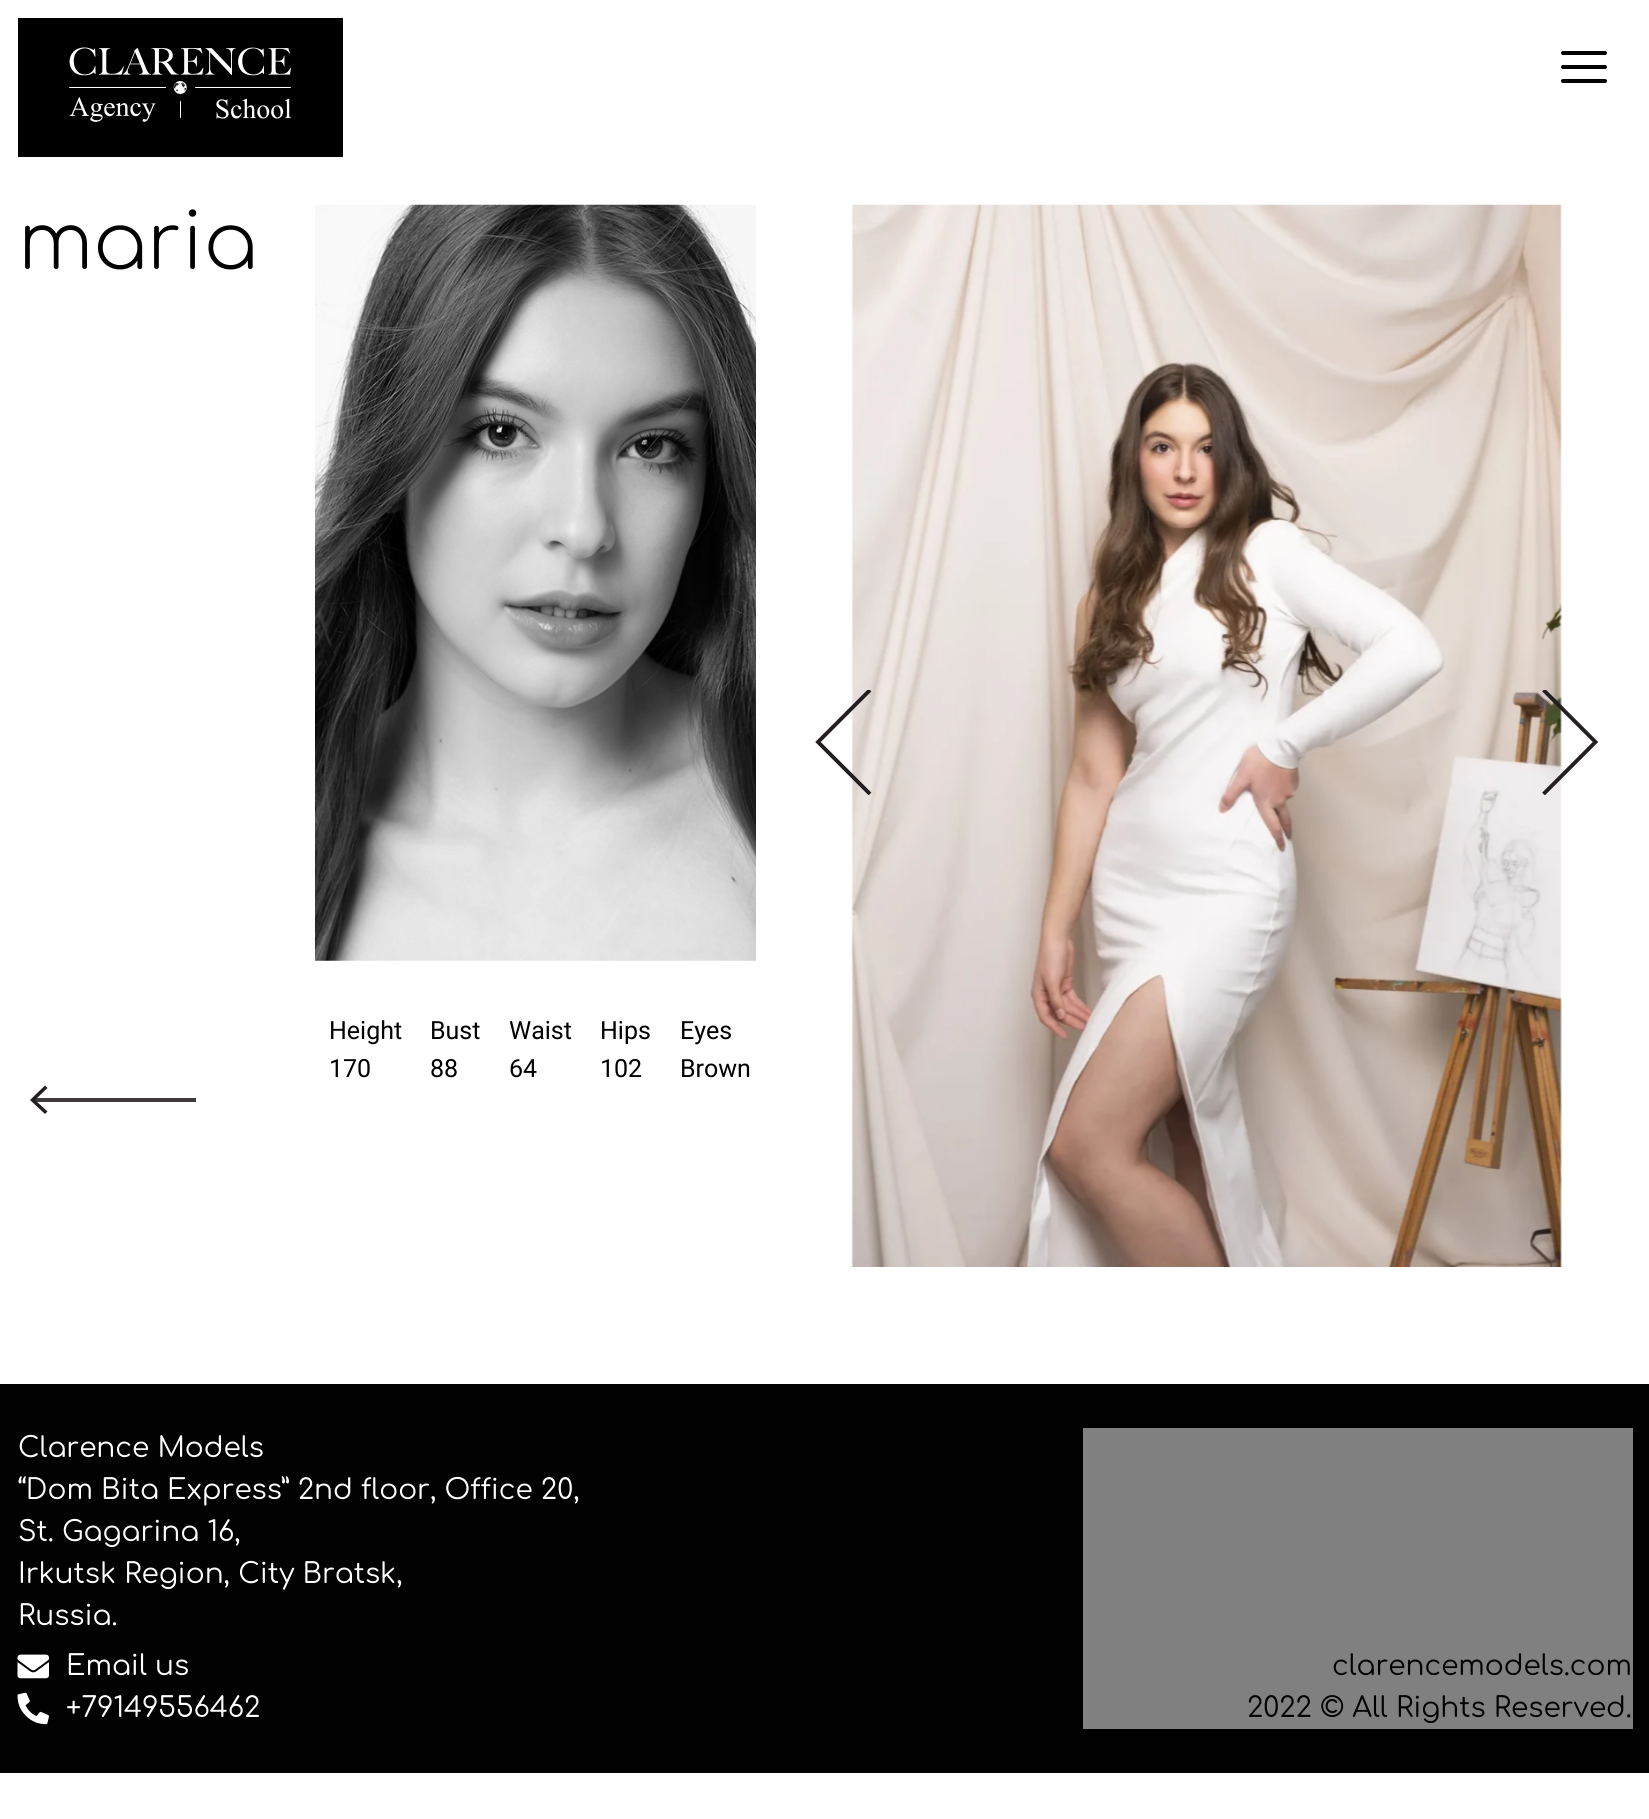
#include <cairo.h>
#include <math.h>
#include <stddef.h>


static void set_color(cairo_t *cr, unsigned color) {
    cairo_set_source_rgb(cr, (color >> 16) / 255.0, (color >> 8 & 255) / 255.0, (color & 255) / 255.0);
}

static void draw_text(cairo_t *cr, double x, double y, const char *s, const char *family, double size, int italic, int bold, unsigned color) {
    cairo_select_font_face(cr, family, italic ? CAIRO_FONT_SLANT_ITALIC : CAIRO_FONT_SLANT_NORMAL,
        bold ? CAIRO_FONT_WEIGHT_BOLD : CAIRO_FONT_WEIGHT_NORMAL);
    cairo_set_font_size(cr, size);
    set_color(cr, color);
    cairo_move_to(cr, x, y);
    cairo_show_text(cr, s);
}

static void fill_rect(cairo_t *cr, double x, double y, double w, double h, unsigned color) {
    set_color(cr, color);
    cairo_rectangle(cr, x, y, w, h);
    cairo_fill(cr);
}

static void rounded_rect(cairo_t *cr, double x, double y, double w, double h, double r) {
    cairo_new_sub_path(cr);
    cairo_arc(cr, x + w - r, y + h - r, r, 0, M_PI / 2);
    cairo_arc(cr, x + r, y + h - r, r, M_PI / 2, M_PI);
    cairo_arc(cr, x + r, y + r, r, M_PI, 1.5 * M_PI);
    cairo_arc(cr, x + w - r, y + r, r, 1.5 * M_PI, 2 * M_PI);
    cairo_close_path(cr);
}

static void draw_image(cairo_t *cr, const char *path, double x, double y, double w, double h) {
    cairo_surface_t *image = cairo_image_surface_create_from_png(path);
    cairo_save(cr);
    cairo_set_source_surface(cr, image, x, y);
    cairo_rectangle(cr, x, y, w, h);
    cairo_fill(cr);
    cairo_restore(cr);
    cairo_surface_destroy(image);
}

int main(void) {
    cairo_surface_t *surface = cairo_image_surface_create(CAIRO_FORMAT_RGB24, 1649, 1819);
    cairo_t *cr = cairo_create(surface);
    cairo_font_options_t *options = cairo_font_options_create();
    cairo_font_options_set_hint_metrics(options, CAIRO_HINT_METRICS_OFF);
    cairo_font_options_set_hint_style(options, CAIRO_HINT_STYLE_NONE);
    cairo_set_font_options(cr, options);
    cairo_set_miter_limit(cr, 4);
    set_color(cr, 0xFFFFFF);
    cairo_paint(cr);
    draw_image(cr, "assets/img1.png", 18, 18, 325, 139);
    set_color(cr, 0x000000);
    rounded_rect(cr, 1561, 65, 46, 4, 2);
    cairo_fill(cr);
    rounded_rect(cr, 1561, 51, 46, 4, 2);
    cairo_fill(cr);
    rounded_rect(cr, 1561, 79, 46, 4, 2);
    cairo_fill(cr);
    draw_text(cr, 18, 269, "maria", "Comfortaa Light", 79, 0, 0, 0x000000);
    fill_rect(cr, 34, 1098, 162, 4, 0x3F3B3C);
    set_color(cr, 0x231F20);
    cairo_new_path(cr);
    cairo_move_to(cr, 45, 1114);
    cairo_line_to(cr, 47.5, 1111.5);
    cairo_line_to(cr, 35, 1100);
    cairo_line_to(cr, 47.5, 1088);
    cairo_line_to(cr, 45, 1085.5);
    cairo_line_to(cr, 30, 1100);
    cairo_close_path(cr);
    cairo_fill(cr);
    draw_image(cr, "assets/img2.png", 851, 204, 711, 1063);
    cairo_save(cr);
    cairo_rectangle(cr, 791, 690, 105, 105);
    cairo_clip(cr);
    cairo_new_path(cr);
    cairo_move_to(cr, 870, 794);
    cairo_line_to(cr, 818, 742);
    cairo_line_to(cr, 870, 690);
    cairo_set_line_width(cr, 3.9);
    cairo_stroke(cr);
    cairo_restore(cr);
    cairo_save(cr);
    cairo_rectangle(cr, 1517, 690, 105, 105);
    cairo_clip(cr);
    cairo_new_path(cr);
    cairo_move_to(cr, 1543.5, 690);
    cairo_line_to(cr, 1595.5, 742);
    cairo_line_to(cr, 1543.5, 794);
    cairo_set_line_width(cr, 3.9);
    cairo_stroke(cr);
    cairo_restore(cr);
    draw_image(cr, "assets/img3.png", 315, 204, 441, 757);
    draw_text(cr, 329, 1039, "Height", "Roboto", 25, 0, 0, 0x000000);
    draw_text(cr, 329, 1077, "170", "Roboto", 25, 0, 0, 0x000000);
    draw_text(cr, 430, 1039, "Bust", "Roboto", 25, 0, 0, 0x000000);
    draw_text(cr, 430, 1077, "88", "Roboto", 25, 0, 0, 0x000000);
    draw_text(cr, 509, 1039, "Waist", "Roboto", 25, 0, 0, 0x000000);
    draw_text(cr, 509, 1077, "64", "Roboto", 25, 0, 0, 0x000000);
    draw_text(cr, 600, 1039, "Hips", "Roboto", 25, 0, 0, 0x000000);
    draw_text(cr, 600, 1077, "102", "Roboto", 25, 0, 0, 0x000000);
    draw_text(cr, 680, 1039, "Eyes", "Roboto", 25, 0, 0, 0x000000);
    draw_text(cr, 680, 1077, "Brown", "Roboto", 25, 0, 0, 0x000000);
    fill_rect(cr, 0, 1384, 1649, 389, 0x010101);
    draw_text(cr, 18, 1457, "Clarence Models", "Comfortaa", 28, 0, 0, 0xFFFFFF);
    draw_text(cr, 18, 1499, "“Dom Bita Express” 2nd floor, Office 20,", "Comfortaa", 28, 0, 0, 0xFFFFFF);
    draw_text(cr, 18, 1541, "St. Gagarina 16,", "Comfortaa", 28, 0, 0, 0xFFFFFF);
    draw_text(cr, 18, 1583, "Irkutsk Region, City Bratsk,", "Comfortaa", 28, 0, 0, 0xFFFFFF);
    draw_text(cr, 18, 1625, "Russia.", "Comfortaa", 28, 0, 0, 0xFFFFFF);
    draw_image(cr, "assets/img4.png", 17, 1654, 32, 25);
    draw_text(cr, 66, 1675, "Email us", "Comfortaa", 28, 0, 0, 0xFFFFFF);
    draw_image(cr, "assets/img5.png", 17, 1692, 32, 33);
    draw_text(cr, 66, 1717, "+79149556462", "Comfortaa", 28, 0, 0, 0xFFFFFF);
    fill_rect(cr, 1083, 1428, 550, 301, 0x808080);
    draw_text(cr, 1332, 1675, "clarencemodels.com", "Comfortaa", 28, 0, 0, 0x000000);
    draw_text(cr, 1247, 1717, "2022 © All Rights Reserved.", "Comfortaa", 28, 0, 0, 0x000000);
    cairo_surface_write_to_png(surface, "output.png");
    cairo_font_options_destroy(options);
    cairo_destroy(cr);
    cairo_surface_destroy(surface);
    return 0;
}
